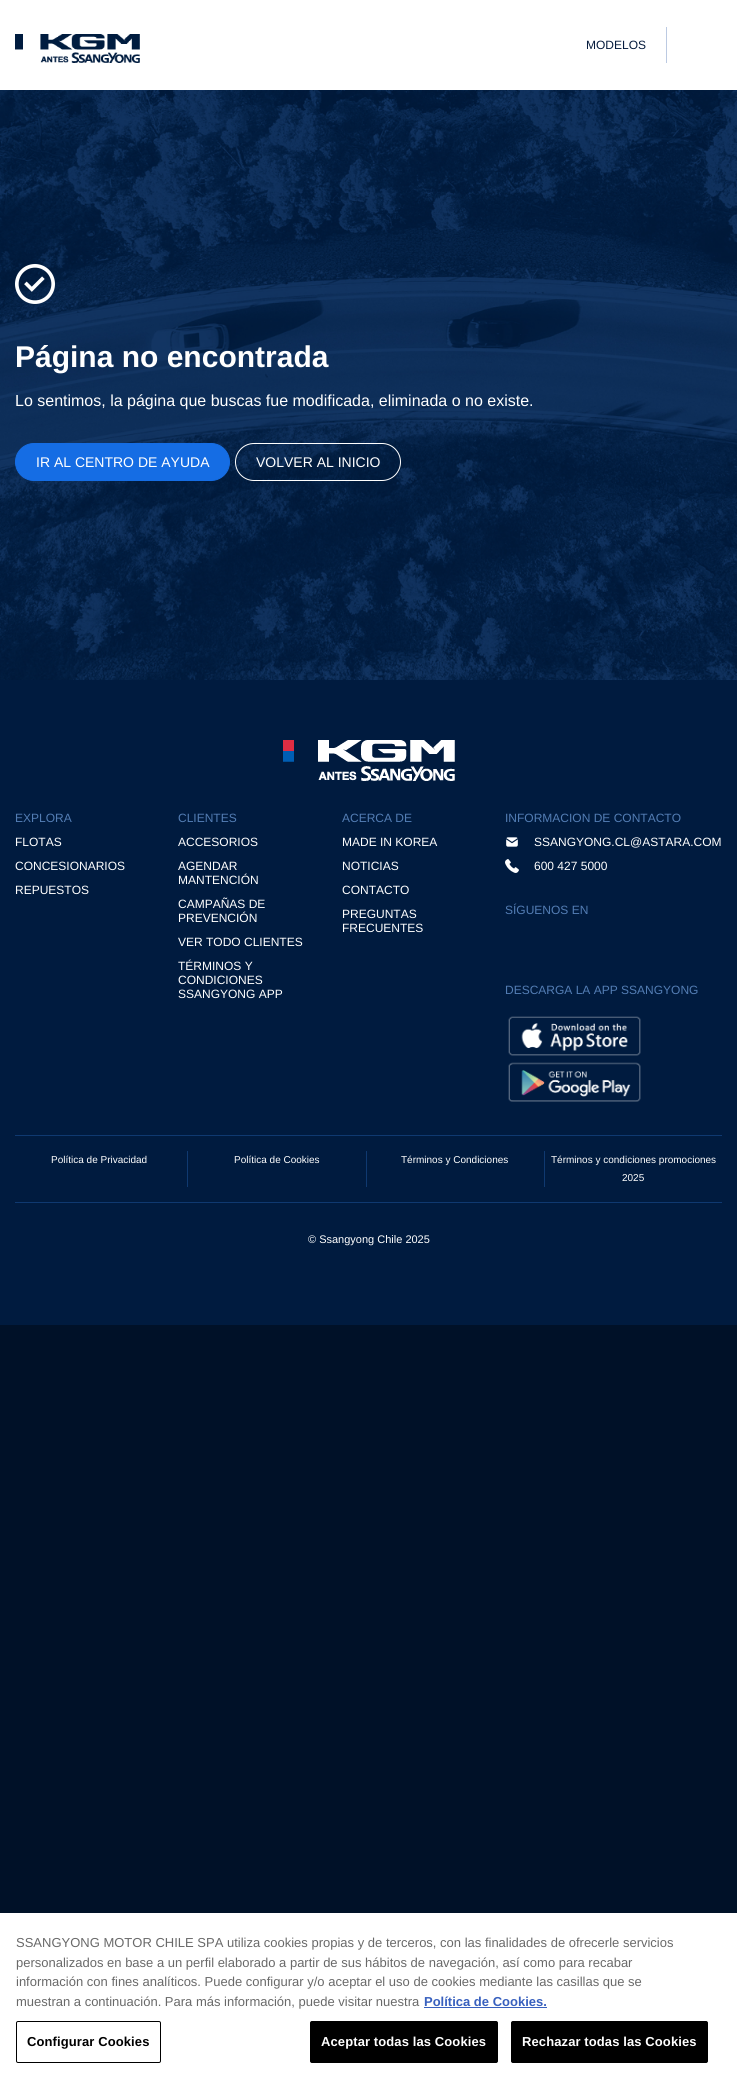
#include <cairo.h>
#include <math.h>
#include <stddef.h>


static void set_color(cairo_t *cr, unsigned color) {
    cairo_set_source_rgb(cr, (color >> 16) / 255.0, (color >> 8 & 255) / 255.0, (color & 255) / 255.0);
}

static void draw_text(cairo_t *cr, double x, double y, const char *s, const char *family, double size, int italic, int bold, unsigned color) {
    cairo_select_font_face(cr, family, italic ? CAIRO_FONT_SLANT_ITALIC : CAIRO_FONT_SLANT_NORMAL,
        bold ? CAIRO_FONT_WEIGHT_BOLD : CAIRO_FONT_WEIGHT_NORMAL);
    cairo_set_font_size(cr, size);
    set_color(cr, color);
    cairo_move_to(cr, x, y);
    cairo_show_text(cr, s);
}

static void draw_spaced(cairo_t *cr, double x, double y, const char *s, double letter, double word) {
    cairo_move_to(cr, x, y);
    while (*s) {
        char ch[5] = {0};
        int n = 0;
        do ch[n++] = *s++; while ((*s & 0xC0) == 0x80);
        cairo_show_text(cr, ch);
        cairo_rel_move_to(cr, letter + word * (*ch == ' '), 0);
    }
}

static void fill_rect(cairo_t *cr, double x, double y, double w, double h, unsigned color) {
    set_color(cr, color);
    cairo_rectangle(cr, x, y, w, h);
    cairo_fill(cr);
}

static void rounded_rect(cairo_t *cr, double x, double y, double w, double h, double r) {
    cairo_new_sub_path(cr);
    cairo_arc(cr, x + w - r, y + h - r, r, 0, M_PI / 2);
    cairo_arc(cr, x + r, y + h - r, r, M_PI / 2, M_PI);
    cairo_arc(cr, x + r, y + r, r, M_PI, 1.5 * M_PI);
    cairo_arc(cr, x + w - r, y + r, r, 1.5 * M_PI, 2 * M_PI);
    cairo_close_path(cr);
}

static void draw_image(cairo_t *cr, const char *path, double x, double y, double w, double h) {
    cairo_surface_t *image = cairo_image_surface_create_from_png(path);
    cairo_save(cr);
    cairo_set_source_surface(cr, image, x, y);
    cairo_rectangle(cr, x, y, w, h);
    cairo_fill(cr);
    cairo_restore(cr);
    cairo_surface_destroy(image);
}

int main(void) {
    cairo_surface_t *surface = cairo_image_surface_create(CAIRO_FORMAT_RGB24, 737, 2083);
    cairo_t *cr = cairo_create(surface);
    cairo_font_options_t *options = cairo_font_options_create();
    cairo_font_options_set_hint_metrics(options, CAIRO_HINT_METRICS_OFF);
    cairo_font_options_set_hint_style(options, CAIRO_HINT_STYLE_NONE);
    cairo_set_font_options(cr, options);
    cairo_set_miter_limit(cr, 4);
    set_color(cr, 0x001128);
    cairo_paint(cr);
    fill_rect(cr, 0, 0, 737, 90, 0xFFFFFF);
    draw_image(cr, "assets/img1.png", 15, 34, 125, 29);
    draw_text(cr, 586, 49, "MODELOS", "Liberation Sans", 12, 0, 0, 0x051B3D);
    fill_rect(cr, 666, 27, 1, 36, 0xBCCAE2);
    draw_image(cr, "assets/img2.png", 0, 90, 737, 590);
    draw_image(cr, "assets/img3.png", 15, 264, 40, 40);
    draw_text(cr, 15, 367, "Página no encontrada", "Liberation Sans", 30, 0, 1, 0xFFFFFF);
    draw_text(cr, 15, 406, "Lo sentimos, la página que buscas fue modificada, eliminada o no existe.", "Liberation Sans", 16, 0, 0, 0xFFFFFF);
    set_color(cr, 0x156DE4);
    rounded_rect(cr, 15.5, 443.5, 214, 37, 18.5);
    cairo_fill_preserve(cr);
    cairo_set_line_width(cr, 1);
    cairo_stroke(cr);
    draw_text(cr, 36, 467, "IR AL CENTRO DE AYUDA", "Liberation Sans", 14, 0, 0, 0xFFFFFF);
    rounded_rect(cr, 235.5, 443.5, 165, 37, 18.5);
    cairo_stroke(cr);
    draw_text(cr, 256, 467, "VOLVER AL INICIO", "Liberation Sans", 14, 0, 0, 0xFFFFFF);
    fill_rect(cr, 0, 680, 737, 645, 0x001B3F);
    draw_image(cr, "assets/img4.png", 283, 740, 172, 41);
    draw_text(cr, 15, 822, "EXPLORA", "Liberation Sans", 12, 0, 0, 0x537DB4);
    draw_text(cr, 15, 846, "FLOTAS", "Liberation Sans", 12, 0, 0, 0xFFFFFF);
    draw_text(cr, 15, 870, "CONCESIONARIOS", "Liberation Sans", 12, 0, 0, 0xFFFFFF);
    draw_text(cr, 15, 894, "REPUESTOS", "Liberation Sans", 12, 0, 0, 0xFFFFFF);
    draw_text(cr, 178, 822, "CLIENTES", "Liberation Sans", 12, 0, 0, 0x537DB4);
    draw_text(cr, 178, 846, "ACCESORIOS", "Liberation Sans", 12, 0, 0, 0xFFFFFF);
    draw_text(cr, 178, 870, "AGENDAR", "Liberation Sans", 12, 0, 0, 0xFFFFFF);
    draw_text(cr, 178, 884, "MANTENCIÓN", "Liberation Sans", 12, 0, 0, 0xFFFFFF);
    draw_text(cr, 178, 908, "CAMPAÑAS DE", "Liberation Sans", 12, 0, 0, 0xFFFFFF);
    draw_text(cr, 178, 922, "PREVENCIÓN", "Liberation Sans", 12, 0, 0, 0xFFFFFF);
    draw_text(cr, 178, 946, "VER TODO CLIENTES", "Liberation Sans", 12, 0, 0, 0xFFFFFF);
    draw_text(cr, 178, 970, "TÉRMINOS Y", "Liberation Sans", 12, 0, 0, 0xFFFFFF);
    draw_text(cr, 178, 984, "CONDICIONES", "Liberation Sans", 12, 0, 0, 0xFFFFFF);
    draw_text(cr, 178, 998, "SSANGYONG APP", "Liberation Sans", 12, 0, 0, 0xFFFFFF);
    draw_text(cr, 342, 822, "ACERCA DE", "Liberation Sans", 12, 0, 0, 0x537DB4);
    draw_text(cr, 342, 846, "MADE IN KOREA", "Liberation Sans", 12, 0, 0, 0xFFFFFF);
    draw_text(cr, 342, 870, "NOTICIAS", "Liberation Sans", 12, 0, 0, 0xFFFFFF);
    draw_text(cr, 342, 894, "CONTACTO", "Liberation Sans", 12, 0, 0, 0xFFFFFF);
    draw_text(cr, 342, 918, "PREGUNTAS", "Liberation Sans", 12, 0, 0, 0xFFFFFF);
    draw_text(cr, 342, 932, "FRECUENTES", "Liberation Sans", 12, 0, 0, 0xFFFFFF);
    draw_text(cr, 505, 822, "INFORMACION DE CONTACTO", "Liberation Sans", 12, 0, 0, 0x537DB4);
    draw_image(cr, "assets/img5.png", 506, 837, 12, 10);
    draw_text(cr, 534, 846, "SSANGYONG.CL@ASTARA.COM", "Liberation Sans", 12, 0, 0, 0xFFFFFF);
    draw_image(cr, "assets/img6.png", 505, 859, 14, 14);
    draw_text(cr, 534, 870, "600 427 5000", "Liberation Sans", 12, 0, 0, 0xFFFFFF);
    draw_text(cr, 505, 914, "SÍGUENOS EN", "Liberation Sans", 12, 0, 0, 0x537DB4);
    draw_text(cr, 505, 994, "DESCARGA LA APP SSANGYONG", "Liberation Sans", 12, 0, 0, 0x537DB4);
    draw_image(cr, "assets/img7.png", 508, 1016, 133, 40);
    draw_image(cr, "assets/img8.png", 508, 1062, 133, 40);
    fill_rect(cr, 15, 1135, 707, 1, 0x0F3970);
    fill_rect(cr, 15, 1202, 707, 1, 0x0F3970);
    fill_rect(cr, 187, 1151, 1, 36, 0x0F3970);
    draw_text(cr, 51, 1163, "Política de Privacidad", "Liberation Sans", 10, 0, 0, 0xFFFFFF);
    fill_rect(cr, 366, 1151, 1, 36, 0x0F3970);
    draw_text(cr, 234, 1163, "Política de Cookies", "Liberation Sans", 10, 0, 0, 0xFFFFFF);
    fill_rect(cr, 544, 1151, 1, 36, 0x0F3970);
    draw_text(cr, 401, 1163, "Términos y Condiciones", "Liberation Sans", 10, 0, 0, 0xFFFFFF);
    draw_text(cr, 551, 1163, "Términos y condiciones promociones", "Liberation Sans", 10, 0, 0, 0xFFFFFF);
    draw_text(cr, 622, 1181, "2025", "Liberation Sans", 10, 0, 0, 0xFFFFFF);
    draw_text(cr, 308, 1243, "© Ssangyong Chile 2025", "Liberation Sans", 11, 0, 0, 0xFFFFFF);
    fill_rect(cr, 0, 1913, 737, 170, 0xFFFFFF);
    draw_text(cr, 16, 1947, "SSANGYONG MOTOR CHILE SPA utiliza cookies propias y de terceros, con las finalidades de ofrecerle servicios", "Liberation Sans", 13, 0, 0, 0x696969);
    draw_text(cr, 16, 1967, "personalizados en base a un perfil elaborado a partir de sus hábitos de navegación, así como para recabar", "Liberation Sans", 13, 0, 0, 0x696969);
    draw_text(cr, 16, 1986, "información con fines analíticos. Puede configurar y/o aceptar el uso de cookies mediante las casillas que se", "Liberation Sans", 13, 0, 0, 0x696969);
    draw_text(cr, 16, 2006, "muestran a continuación. Para más información, puede visitar nuestra", "Liberation Sans", 13, 0, 0, 0x696969);
    draw_text(cr, 424, 2006, "Política de Cookies.", "Liberation Sans", 13, 0, 1, 0x3860BE);
    fill_rect(cr, 424, 2007, 123, 1, 0x3860BE);
    rounded_rect(cr, 16.5, 2021.5, 144, 41, 1.5);
    set_color(cr, 0x000000);
    cairo_stroke(cr);
    draw_spaced(cr, 27, 2046, "Configurar Cookies", 0.1, 0);
    rounded_rect(cr, 310.5, 2021.5, 187, 41, 1.5);
    cairo_fill_preserve(cr);
    cairo_stroke(cr);
    set_color(cr, 0xFFFFFF);
    draw_spaced(cr, 321, 2046, "Aceptar todas las Cookies", 0.1, 0);
    set_color(cr, 0x000000);
    rounded_rect(cr, 511.5, 2021.5, 196, 41, 1.5);
    cairo_fill_preserve(cr);
    cairo_stroke(cr);
    set_color(cr, 0xFFFFFF);
    draw_spaced(cr, 522, 2046, "Rechazar todas las Cookies", 0.1, 0);
    cairo_surface_write_to_png(surface, "output.png");
    cairo_font_options_destroy(options);
    cairo_destroy(cr);
    cairo_surface_destroy(surface);
    return 0;
}
